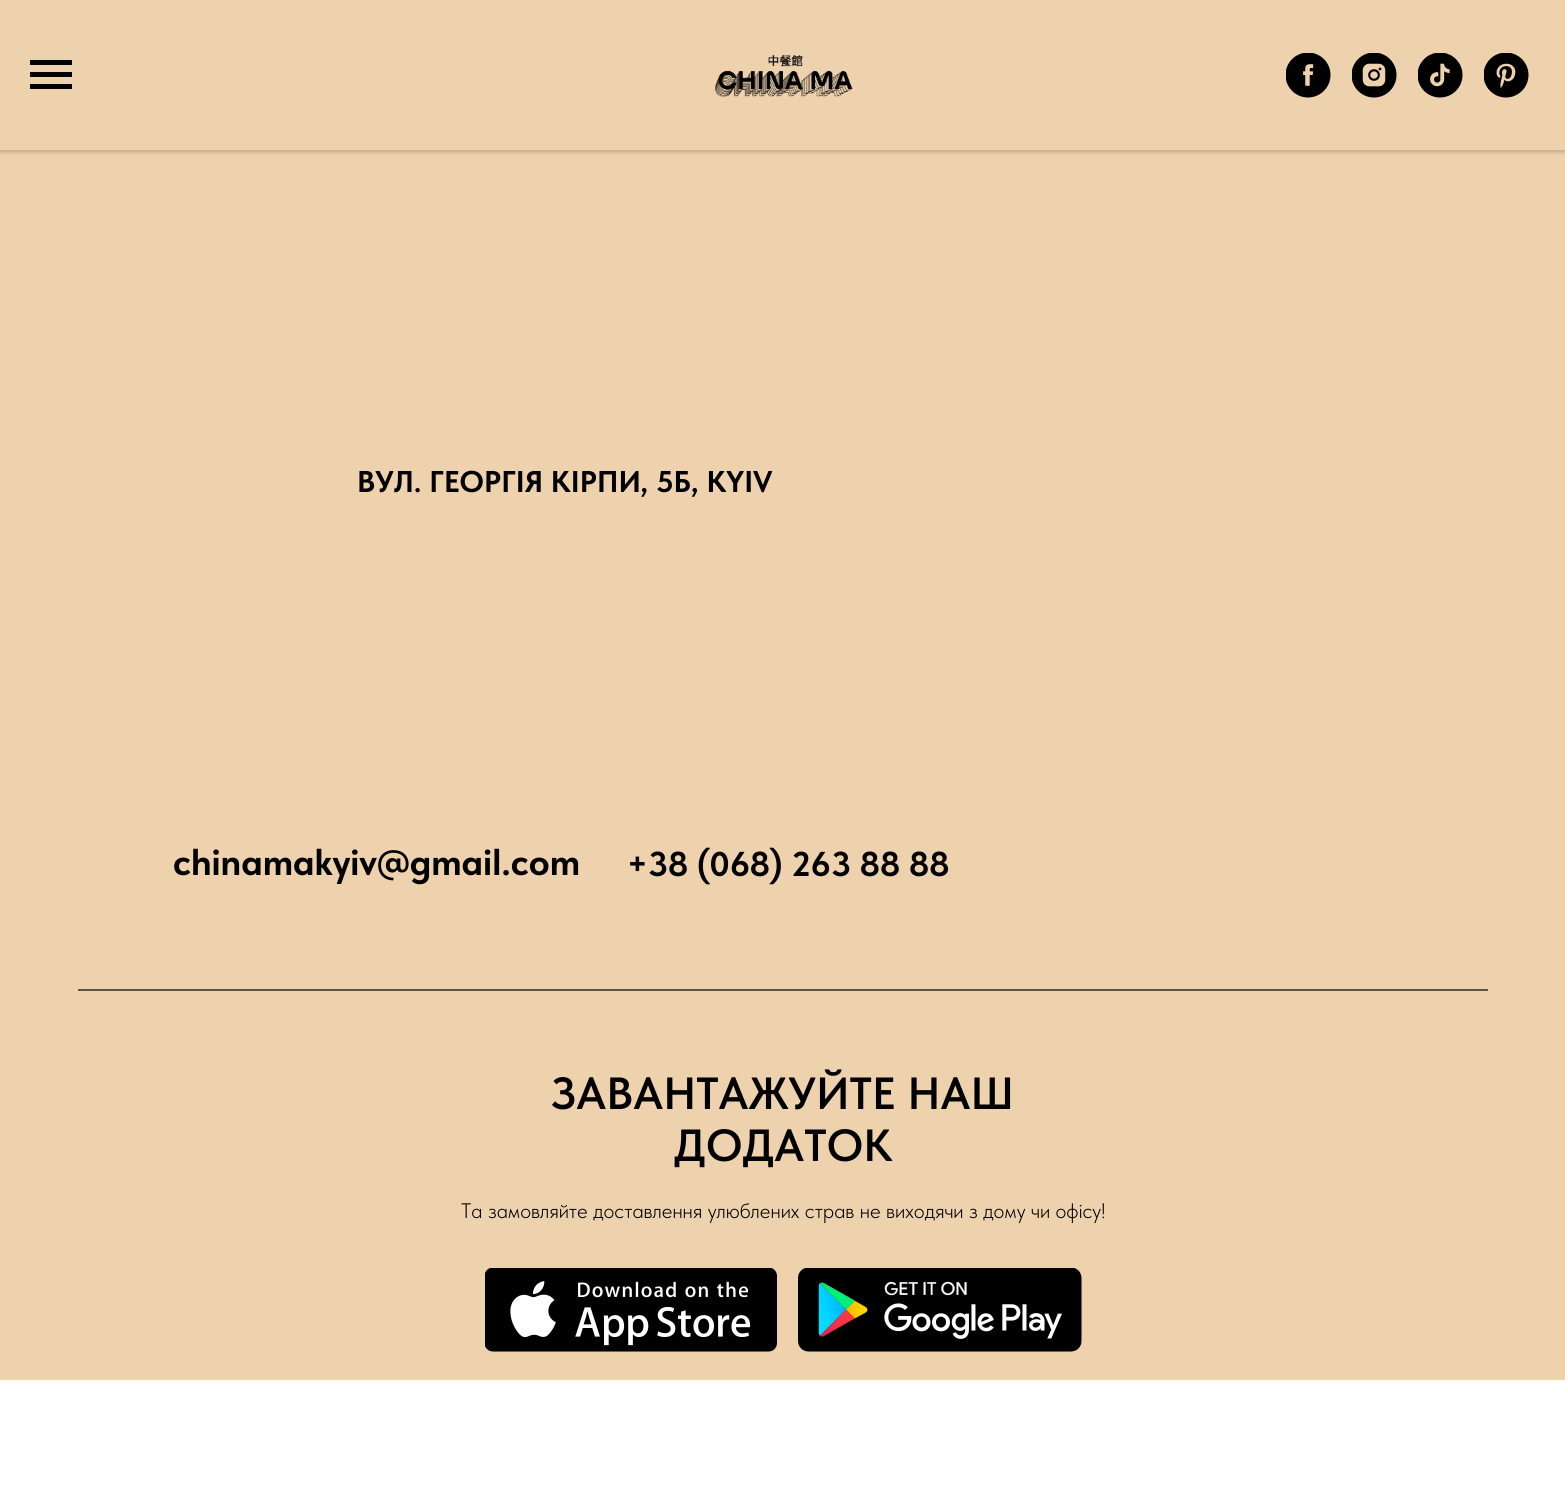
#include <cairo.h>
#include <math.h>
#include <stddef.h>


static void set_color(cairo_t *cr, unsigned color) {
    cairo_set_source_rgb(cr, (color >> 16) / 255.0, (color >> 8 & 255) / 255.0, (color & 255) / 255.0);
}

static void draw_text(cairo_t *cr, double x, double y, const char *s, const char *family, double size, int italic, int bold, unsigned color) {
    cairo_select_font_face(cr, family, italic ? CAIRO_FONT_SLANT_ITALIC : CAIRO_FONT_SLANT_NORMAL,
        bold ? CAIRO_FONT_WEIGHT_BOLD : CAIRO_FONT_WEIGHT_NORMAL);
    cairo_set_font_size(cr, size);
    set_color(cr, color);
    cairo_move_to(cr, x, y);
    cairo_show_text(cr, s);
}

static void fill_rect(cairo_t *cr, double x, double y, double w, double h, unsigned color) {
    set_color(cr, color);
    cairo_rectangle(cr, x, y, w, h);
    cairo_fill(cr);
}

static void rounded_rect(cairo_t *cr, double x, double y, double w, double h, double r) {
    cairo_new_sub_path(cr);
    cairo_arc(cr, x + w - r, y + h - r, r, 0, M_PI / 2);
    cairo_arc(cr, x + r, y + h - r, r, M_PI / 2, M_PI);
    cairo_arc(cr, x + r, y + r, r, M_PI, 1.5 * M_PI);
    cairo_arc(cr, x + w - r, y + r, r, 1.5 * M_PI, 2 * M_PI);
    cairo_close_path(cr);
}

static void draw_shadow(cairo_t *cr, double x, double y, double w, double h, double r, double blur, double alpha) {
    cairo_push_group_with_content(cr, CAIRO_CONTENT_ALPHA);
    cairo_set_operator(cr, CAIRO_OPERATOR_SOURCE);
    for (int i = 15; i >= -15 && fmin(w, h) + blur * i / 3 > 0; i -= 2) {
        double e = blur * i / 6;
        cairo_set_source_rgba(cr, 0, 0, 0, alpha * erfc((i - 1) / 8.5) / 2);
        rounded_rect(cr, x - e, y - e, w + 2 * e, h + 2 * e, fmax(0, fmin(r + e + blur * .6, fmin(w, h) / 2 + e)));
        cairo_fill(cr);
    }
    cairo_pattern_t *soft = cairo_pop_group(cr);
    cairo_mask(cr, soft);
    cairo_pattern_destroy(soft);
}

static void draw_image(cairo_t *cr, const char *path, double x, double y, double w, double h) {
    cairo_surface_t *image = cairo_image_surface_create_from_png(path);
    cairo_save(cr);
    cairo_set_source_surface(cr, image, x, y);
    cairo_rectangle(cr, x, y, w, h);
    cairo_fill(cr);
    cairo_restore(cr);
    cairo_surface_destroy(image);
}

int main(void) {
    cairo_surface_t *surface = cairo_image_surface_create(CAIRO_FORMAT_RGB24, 1565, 1491);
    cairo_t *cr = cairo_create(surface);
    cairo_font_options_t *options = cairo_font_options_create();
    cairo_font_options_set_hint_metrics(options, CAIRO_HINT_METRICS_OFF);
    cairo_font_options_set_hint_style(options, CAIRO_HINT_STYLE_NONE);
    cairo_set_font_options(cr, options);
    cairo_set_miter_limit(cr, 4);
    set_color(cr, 0xFFFFFF);
    cairo_paint(cr);
    fill_rect(cr, 0, 150, 1565, 1230, 0xEED1AD);
    set_color(cr, 0x000000);
    draw_shadow(cr, 0, 2, 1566, 150, 0, 2, 0.2);
    fill_rect(cr, 0, 0, 1565, 150, 0xEED1AD);
    fill_rect(cr, 30, 60, 42, 5, 0x000000);
    fill_rect(cr, 30, 72, 42, 5, 0x000000);
    fill_rect(cr, 30, 84, 42, 5, 0x000000);
    draw_image(cr, "assets/img1.png", 715, 54, 138, 43);
    draw_image(cr, "assets/img2.png", 1286, 53, 45, 45);
    draw_image(cr, "assets/img3.png", 1352, 53, 45, 45);
    draw_image(cr, "assets/img4.png", 1418, 53, 45, 45);
    draw_image(cr, "assets/img5.png", 1484, 53, 45, 45);
    fill_rect(cr, 78, 989, 1410, 2, 0x5F5445);
    draw_text(cr, 357, 492, "ВУЛ. ГЕОРГІЯ КІРПИ, 5Б, KYIV", "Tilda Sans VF", 30, 0, 1, 0x000000);
    draw_text(cr, 173, 875, "chinamakyiv@gmail.com", "Tilda Sans VF", 37.5, 0, 1, 0x000000);
    draw_text(cr, 627, 876, "+38 (068) 263 88 88", "Tilda Sans VF", 34.5, 0, 1, 0x000000);
    draw_text(cr, 551, 1109, "ЗАВАНТАЖУЙТЕ НАШ", "Tilda Sans VF SemiBold", 45, 0, 0, 0x000000);
    draw_text(cr, 674, 1161, "ДОДАТОК", "Tilda Sans VF SemiBold", 45, 0, 0, 0x000000);
    draw_text(cr, 461, 1218, "Та замовляйте доставлення улюблених страв не виходячи з дому чи офісу!", "Tilda Sans VF Light", 21, 0, 0, 0x000000);
    draw_image(cr, "assets/img6.png", 485, 1268, 292, 84);
    draw_image(cr, "assets/img7.png", 798, 1268, 284, 84);
    cairo_surface_write_to_png(surface, "output.png");
    cairo_font_options_destroy(options);
    cairo_destroy(cr);
    cairo_surface_destroy(surface);
    return 0;
}
